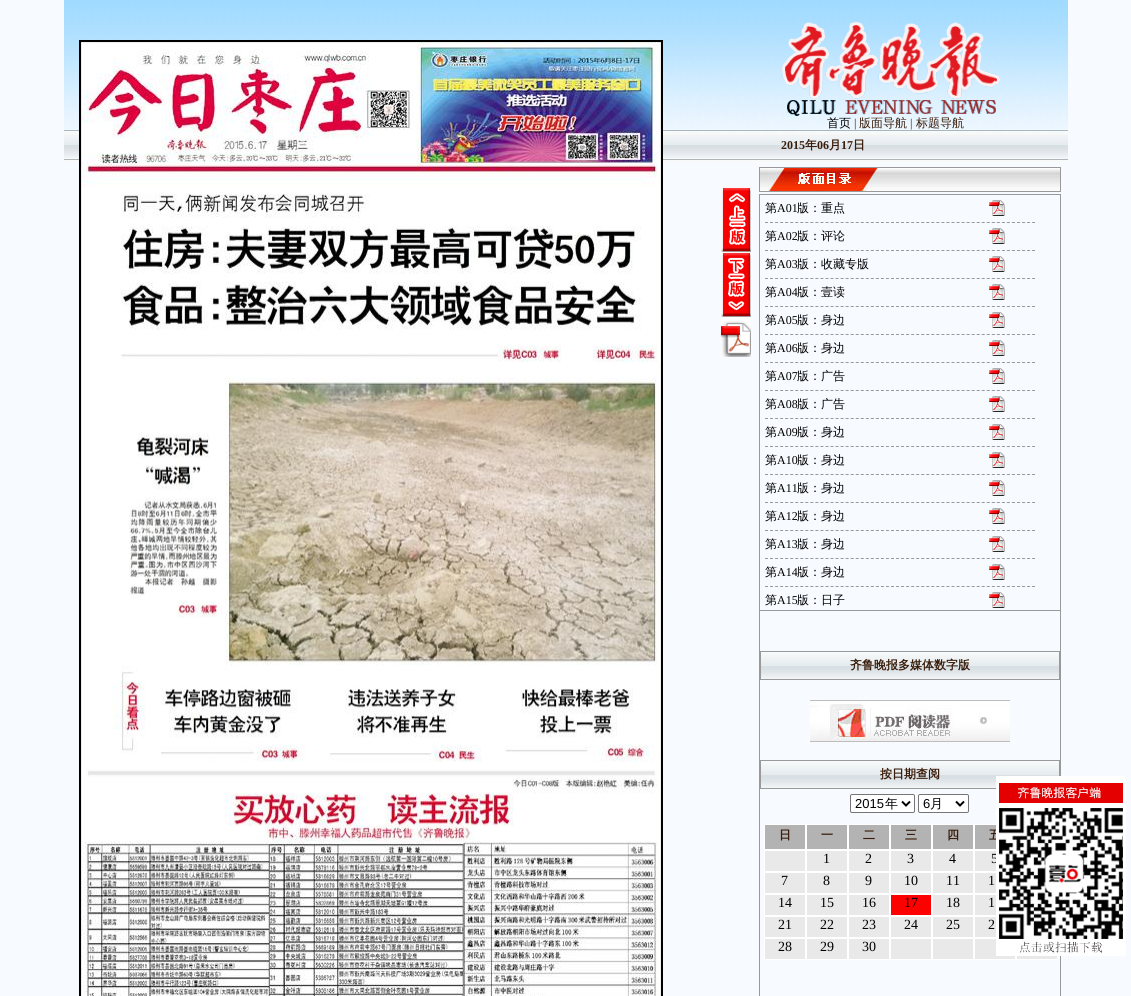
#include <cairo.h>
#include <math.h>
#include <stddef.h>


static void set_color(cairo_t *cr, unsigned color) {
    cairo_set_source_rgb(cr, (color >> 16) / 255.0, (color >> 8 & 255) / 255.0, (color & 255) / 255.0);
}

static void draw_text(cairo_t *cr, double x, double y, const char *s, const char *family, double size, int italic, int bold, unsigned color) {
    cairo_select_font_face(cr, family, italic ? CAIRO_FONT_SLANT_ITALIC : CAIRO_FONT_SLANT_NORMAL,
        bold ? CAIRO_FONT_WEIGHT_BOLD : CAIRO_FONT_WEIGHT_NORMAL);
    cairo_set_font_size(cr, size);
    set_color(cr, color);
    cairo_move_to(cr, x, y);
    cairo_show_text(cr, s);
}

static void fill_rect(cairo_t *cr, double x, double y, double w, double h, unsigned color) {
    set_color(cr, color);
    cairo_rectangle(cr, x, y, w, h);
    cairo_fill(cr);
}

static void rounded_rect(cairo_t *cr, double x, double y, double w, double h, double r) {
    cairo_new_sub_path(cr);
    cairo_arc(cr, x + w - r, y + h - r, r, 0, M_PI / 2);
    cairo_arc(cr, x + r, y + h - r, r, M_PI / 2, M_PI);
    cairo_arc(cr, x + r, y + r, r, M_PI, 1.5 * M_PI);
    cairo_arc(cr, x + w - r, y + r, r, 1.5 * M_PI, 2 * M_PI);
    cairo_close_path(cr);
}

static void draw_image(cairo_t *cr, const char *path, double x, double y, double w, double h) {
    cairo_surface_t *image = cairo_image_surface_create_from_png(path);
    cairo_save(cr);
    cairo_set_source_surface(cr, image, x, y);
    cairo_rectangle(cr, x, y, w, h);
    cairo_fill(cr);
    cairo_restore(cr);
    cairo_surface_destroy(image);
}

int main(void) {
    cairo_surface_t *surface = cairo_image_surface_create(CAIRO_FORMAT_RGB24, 1131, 996);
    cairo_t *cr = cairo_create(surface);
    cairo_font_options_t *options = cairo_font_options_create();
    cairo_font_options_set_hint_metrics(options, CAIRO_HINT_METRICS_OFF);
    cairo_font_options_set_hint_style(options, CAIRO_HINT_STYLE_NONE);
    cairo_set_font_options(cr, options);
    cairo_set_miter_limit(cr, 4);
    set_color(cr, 0xF7FAFF);
    cairo_paint(cr);
    draw_image(cr, "assets/img1.png", 64, 0, 1004, 162);
    cairo_rectangle(cr, 80, 41, 582, 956);
    set_color(cr, 0x000000);
    cairo_stroke(cr);
    draw_image(cr, "assets/img2.png", 81, 42, 580, 954);
    draw_image(cr, "assets/img3.png", 782, 22, 218, 94);
    draw_text(cr, 827, 127, "首页", "WenQuanYi Zen Hei Medium", 12, 0, 0, 0x000000);
    draw_text(cr, 854, 127, "|", "Liberation Serif", 12, 0, 0, 0x391C09);
    draw_text(cr, 859, 127, "版面导航", "WenQuanYi Zen Hei Medium", 12, 0, 0, 0x391C09);
    draw_text(cr, 910, 127, "|", "Liberation Serif", 12, 0, 0, 0x391C09);
    draw_text(cr, 916, 127, "标题导航", "WenQuanYi Zen Hei Medium", 12, 0, 0, 0x391C09);
    draw_text(cr, 781, 149, "2015", "Liberation Serif", 12, 0, 1, 0x391C09);
    draw_text(cr, 805, 149, "年", "WenQuanYi Zen Hei", 12, 0, 1, 0x391C09);
    draw_text(cr, 817, 149, "06", "Liberation Serif", 12, 0, 1, 0x391C09);
    draw_text(cr, 829, 149, "月", "WenQuanYi Zen Hei", 12, 0, 1, 0x391C09);
    draw_text(cr, 841, 149, "17", "Liberation Serif", 12, 0, 1, 0x391C09);
    draw_text(cr, 853, 149, "日", "WenQuanYi Zen Hei", 12, 0, 1, 0x391C09);
    draw_image(cr, "assets/img4.png", 721, 187, 30, 65);
    draw_image(cr, "assets/img5.png", 721, 252, 30, 65);
    draw_image(cr, "assets/img6.png", 721, 317, 30, 40);
    draw_image(cr, "assets/img7.png", 760, 168, 300, 23);
    cairo_rectangle(cr, 759.5, 167.5, 301, 24);
    set_color(cr, 0x999999);
    cairo_set_line_width(cr, 1);
    cairo_stroke(cr);
    cairo_rectangle(cr, 759.5, 194.5, 301, 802);
    cairo_stroke(cr);
    fill_rect(cr, 760, 610, 300, 1, 0x999999);
    cairo_new_path(cr);
    cairo_move_to(cr, 765, 222.5);
    cairo_line_to(cr, 1035, 222.5);
    cairo_set_dash(cr, (double[]){3, 2.04}, 2, 0);
    cairo_stroke(cr);
    draw_text(cr, 765, 212, "第", "WenQuanYi Zen Hei Medium", 12, 0, 0, 0x000000);
    draw_text(cr, 777, 212, "A01", "Liberation Serif", 12, 0, 0, 0x000000);
    draw_text(cr, 797, 212, "版：重点", "WenQuanYi Zen Hei Medium", 12, 0, 0, 0x000000);
    draw_image(cr, "assets/img8.png", 989, 200, 16, 16);
    cairo_new_path(cr);
    cairo_move_to(cr, 765, 250.5);
    cairo_line_to(cr, 1035, 250.5);
    set_color(cr, 0x999999);
    cairo_stroke(cr);
    draw_text(cr, 765, 240, "第", "WenQuanYi Zen Hei Medium", 12, 0, 0, 0x000000);
    draw_text(cr, 777, 240, "A02", "Liberation Serif", 12, 0, 0, 0x000000);
    draw_text(cr, 797, 240, "版：评论", "WenQuanYi Zen Hei Medium", 12, 0, 0, 0x000000);
    draw_image(cr, "assets/img8.png", 989, 228, 16, 16);
    cairo_new_path(cr);
    cairo_move_to(cr, 765, 278.5);
    cairo_line_to(cr, 1035, 278.5);
    set_color(cr, 0x999999);
    cairo_stroke(cr);
    draw_text(cr, 765, 268, "第", "WenQuanYi Zen Hei Medium", 12, 0, 0, 0x000000);
    draw_text(cr, 777, 268, "A03", "Liberation Serif", 12, 0, 0, 0x000000);
    draw_text(cr, 797, 268, "版：收藏专版", "WenQuanYi Zen Hei Medium", 12, 0, 0, 0x000000);
    draw_image(cr, "assets/img8.png", 989, 256, 16, 16);
    cairo_new_path(cr);
    cairo_move_to(cr, 765, 306.5);
    cairo_line_to(cr, 1035, 306.5);
    set_color(cr, 0x999999);
    cairo_stroke(cr);
    draw_text(cr, 765, 296, "第", "WenQuanYi Zen Hei Medium", 12, 0, 0, 0x000000);
    draw_text(cr, 777, 296, "A04", "Liberation Serif", 12, 0, 0, 0x000000);
    draw_text(cr, 797, 296, "版：壹读", "WenQuanYi Zen Hei Medium", 12, 0, 0, 0x000000);
    draw_image(cr, "assets/img8.png", 989, 284, 16, 16);
    cairo_new_path(cr);
    cairo_move_to(cr, 765, 334.5);
    cairo_line_to(cr, 1035, 334.5);
    set_color(cr, 0x999999);
    cairo_stroke(cr);
    draw_text(cr, 765, 324, "第", "WenQuanYi Zen Hei Medium", 12, 0, 0, 0x000000);
    draw_text(cr, 777, 324, "A05", "Liberation Serif", 12, 0, 0, 0x000000);
    draw_text(cr, 797, 324, "版：身边", "WenQuanYi Zen Hei Medium", 12, 0, 0, 0x000000);
    draw_image(cr, "assets/img8.png", 989, 312, 16, 16);
    cairo_new_path(cr);
    cairo_move_to(cr, 765, 362.5);
    cairo_line_to(cr, 1035, 362.5);
    set_color(cr, 0x999999);
    cairo_stroke(cr);
    draw_text(cr, 765, 352, "第", "WenQuanYi Zen Hei Medium", 12, 0, 0, 0x000000);
    draw_text(cr, 777, 352, "A06", "Liberation Serif", 12, 0, 0, 0x000000);
    draw_text(cr, 797, 352, "版：身边", "WenQuanYi Zen Hei Medium", 12, 0, 0, 0x000000);
    draw_image(cr, "assets/img8.png", 989, 340, 16, 16);
    cairo_new_path(cr);
    cairo_move_to(cr, 765, 390.5);
    cairo_line_to(cr, 1035, 390.5);
    set_color(cr, 0x999999);
    cairo_stroke(cr);
    draw_text(cr, 765, 380, "第", "WenQuanYi Zen Hei Medium", 12, 0, 0, 0x000000);
    draw_text(cr, 777, 380, "A07", "Liberation Serif", 12, 0, 0, 0x000000);
    draw_text(cr, 797, 380, "版：广告", "WenQuanYi Zen Hei Medium", 12, 0, 0, 0x000000);
    draw_image(cr, "assets/img8.png", 989, 368, 16, 16);
    cairo_new_path(cr);
    cairo_move_to(cr, 765, 418.5);
    cairo_line_to(cr, 1035, 418.5);
    set_color(cr, 0x999999);
    cairo_stroke(cr);
    draw_text(cr, 765, 408, "第", "WenQuanYi Zen Hei Medium", 12, 0, 0, 0x000000);
    draw_text(cr, 777, 408, "A08", "Liberation Serif", 12, 0, 0, 0x000000);
    draw_text(cr, 797, 408, "版：广告", "WenQuanYi Zen Hei Medium", 12, 0, 0, 0x000000);
    draw_image(cr, "assets/img8.png", 989, 396, 16, 16);
    cairo_new_path(cr);
    cairo_move_to(cr, 765, 446.5);
    cairo_line_to(cr, 1035, 446.5);
    set_color(cr, 0x999999);
    cairo_stroke(cr);
    draw_text(cr, 765, 436, "第", "WenQuanYi Zen Hei Medium", 12, 0, 0, 0x000000);
    draw_text(cr, 777, 436, "A09", "Liberation Serif", 12, 0, 0, 0x000000);
    draw_text(cr, 797, 436, "版：身边", "WenQuanYi Zen Hei Medium", 12, 0, 0, 0x000000);
    draw_image(cr, "assets/img8.png", 989, 424, 16, 16);
    cairo_new_path(cr);
    cairo_move_to(cr, 765, 474.5);
    cairo_line_to(cr, 1035, 474.5);
    set_color(cr, 0x999999);
    cairo_stroke(cr);
    draw_text(cr, 765, 464, "第", "WenQuanYi Zen Hei Medium", 12, 0, 0, 0x000000);
    draw_text(cr, 777, 464, "A10", "Liberation Serif", 12, 0, 0, 0x000000);
    draw_text(cr, 797, 464, "版：身边", "WenQuanYi Zen Hei Medium", 12, 0, 0, 0x000000);
    draw_image(cr, "assets/img8.png", 989, 452, 16, 16);
    cairo_new_path(cr);
    cairo_move_to(cr, 765, 502.5);
    cairo_line_to(cr, 1035, 502.5);
    set_color(cr, 0x999999);
    cairo_stroke(cr);
    draw_text(cr, 765, 492, "第", "WenQuanYi Zen Hei Medium", 12, 0, 0, 0x000000);
    draw_text(cr, 777, 492, "A11", "Liberation Serif", 12, 0, 0, 0x000000);
    draw_text(cr, 797, 492, "版：身边", "WenQuanYi Zen Hei Medium", 12, 0, 0, 0x000000);
    draw_image(cr, "assets/img8.png", 989, 480, 16, 16);
    cairo_new_path(cr);
    cairo_move_to(cr, 765, 530.5);
    cairo_line_to(cr, 1035, 530.5);
    set_color(cr, 0x999999);
    cairo_stroke(cr);
    draw_text(cr, 765, 520, "第", "WenQuanYi Zen Hei Medium", 12, 0, 0, 0x000000);
    draw_text(cr, 777, 520, "A12", "Liberation Serif", 12, 0, 0, 0x000000);
    draw_text(cr, 797, 520, "版：身边", "WenQuanYi Zen Hei Medium", 12, 0, 0, 0x000000);
    draw_image(cr, "assets/img8.png", 989, 508, 16, 16);
    cairo_new_path(cr);
    cairo_move_to(cr, 765, 558.5);
    cairo_line_to(cr, 1035, 558.5);
    set_color(cr, 0x999999);
    cairo_stroke(cr);
    draw_text(cr, 765, 548, "第", "WenQuanYi Zen Hei Medium", 12, 0, 0, 0x000000);
    draw_text(cr, 777, 548, "A13", "Liberation Serif", 12, 0, 0, 0x000000);
    draw_text(cr, 797, 548, "版：身边", "WenQuanYi Zen Hei Medium", 12, 0, 0, 0x000000);
    draw_image(cr, "assets/img8.png", 989, 536, 16, 16);
    cairo_new_path(cr);
    cairo_move_to(cr, 765, 586.5);
    cairo_line_to(cr, 1035, 586.5);
    set_color(cr, 0x999999);
    cairo_stroke(cr);
    draw_text(cr, 765, 576, "第", "WenQuanYi Zen Hei Medium", 12, 0, 0, 0x000000);
    draw_text(cr, 777, 576, "A14", "Liberation Serif", 12, 0, 0, 0x000000);
    draw_text(cr, 797, 576, "版：身边", "WenQuanYi Zen Hei Medium", 12, 0, 0, 0x000000);
    draw_image(cr, "assets/img8.png", 989, 564, 16, 16);
    draw_text(cr, 765, 604, "第", "WenQuanYi Zen Hei Medium", 12, 0, 0, 0x000000);
    draw_text(cr, 777, 604, "A15", "Liberation Serif", 12, 0, 0, 0x000000);
    draw_text(cr, 797, 604, "版：日子", "WenQuanYi Zen Hei Medium", 12, 0, 0, 0x000000);
    draw_image(cr, "assets/img8.png", 989, 592, 16, 16);
    draw_image(cr, "assets/img9.png", 761, 653, 298, 26);
    cairo_rectangle(cr, 760.5, 651.5, 299, 28);
    set_color(cr, 0x999999);
    cairo_set_dash(cr, NULL, 0, 0);
    cairo_stroke(cr);
    draw_text(cr, 850, 669, "齐鲁晚报多媒体数字版", "WenQuanYi Zen Hei", 12, 0, 1, 0x391C09);
    draw_image(cr, "assets/img10.png", 810, 700, 200, 42);
    draw_image(cr, "assets/img9.png", 761, 762, 298, 26);
    cairo_rectangle(cr, 760.5, 760.5, 299, 28);
    set_color(cr, 0x999999);
    cairo_stroke(cr);
    draw_text(cr, 880, 778, "按日期查阅", "WenQuanYi Zen Hei", 12, 0, 1, 0x391C09);
    set_color(cr, 0xFFFFFF);
    rounded_rect(cr, 850.5, 794.5, 64, 18, 1.5);
    cairo_fill_preserve(cr);
    set_color(cr, 0x767676);
    cairo_stroke(cr);
    cairo_new_path(cr);
    cairo_move_to(cr, 902, 801.5);
    cairo_line_to(cr, 906, 805.5);
    cairo_line_to(cr, 910, 801.5);
    set_color(cr, 0x000000);
    cairo_set_line_width(cr, 2);
    cairo_stroke(cr);
    draw_text(cr, 855, 808, "2015", "Liberation Sans", 13, 0, 0, 0x000000);
    draw_text(cr, 885, 808, "年", "WenQuanYi Zen Hei Medium", 13, 0, 0, 0x000000);
    set_color(cr, 0xFFFFFF);
    rounded_rect(cr, 918.5, 794.5, 50, 18, 1.5);
    cairo_fill_preserve(cr);
    set_color(cr, 0x767676);
    cairo_set_line_width(cr, 1);
    cairo_stroke(cr);
    cairo_new_path(cr);
    cairo_move_to(cr, 956, 801.5);
    cairo_line_to(cr, 960, 805.5);
    cairo_line_to(cr, 964, 801.5);
    set_color(cr, 0x000000);
    cairo_set_line_width(cr, 2);
    cairo_stroke(cr);
    draw_text(cr, 923, 808, "6", "Liberation Sans", 13, 0, 0, 0x000000);
    draw_text(cr, 930, 808, "月", "WenQuanYi Zen Hei Medium", 13, 0, 0, 0x000000);
    set_color(cr, 0xB3B3B3);
    cairo_rectangle(cr, 764.5, 824.5, 41, 25);
    cairo_fill_preserve(cr);
    set_color(cr, 0xFFFFFF);
    cairo_set_line_width(cr, 1);
    cairo_stroke(cr);
    draw_text(cr, 779, 839, "日", "WenQuanYi Zen Hei", 12, 0, 1, 0x391C09);
    set_color(cr, 0xB3B3B3);
    cairo_rectangle(cr, 806.5, 824.5, 41, 25);
    cairo_fill_preserve(cr);
    set_color(cr, 0xFFFFFF);
    cairo_stroke(cr);
    draw_text(cr, 821, 839, "一", "WenQuanYi Zen Hei", 12, 0, 1, 0x391C09);
    set_color(cr, 0xB3B3B3);
    cairo_rectangle(cr, 848.5, 824.5, 41, 25);
    cairo_fill_preserve(cr);
    set_color(cr, 0xFFFFFF);
    cairo_stroke(cr);
    draw_text(cr, 863, 839, "二", "WenQuanYi Zen Hei", 12, 0, 1, 0x391C09);
    set_color(cr, 0xB3B3B3);
    cairo_rectangle(cr, 890.5, 824.5, 41, 25);
    cairo_fill_preserve(cr);
    set_color(cr, 0xFFFFFF);
    cairo_stroke(cr);
    draw_text(cr, 905, 839, "三", "WenQuanYi Zen Hei", 12, 0, 1, 0x391C09);
    set_color(cr, 0xB3B3B3);
    cairo_rectangle(cr, 932.5, 824.5, 41, 25);
    cairo_fill_preserve(cr);
    set_color(cr, 0xFFFFFF);
    cairo_stroke(cr);
    draw_text(cr, 947, 839, "四", "WenQuanYi Zen Hei", 12, 0, 1, 0x391C09);
    fill_rect(cr, 975, 825, 21, 24, 0xB3B3B3);
    cairo_rectangle(cr, 974.5, 824.5, 41, 25);
    set_color(cr, 0xFFFFFF);
    cairo_stroke(cr);
    draw_text(cr, 989, 839, "五", "WenQuanYi Zen Hei", 12, 0, 1, 0x391C09);
    set_color(cr, 0xE9E9E9);
    cairo_rectangle(cr, 764.5, 850.5, 41, 21);
    cairo_fill_preserve(cr);
    set_color(cr, 0xFFFFFF);
    cairo_stroke(cr);
    set_color(cr, 0xE9E9E9);
    cairo_rectangle(cr, 806.5, 850.5, 41, 21);
    cairo_fill_preserve(cr);
    set_color(cr, 0xFFFFFF);
    cairo_stroke(cr);
    draw_text(cr, 823, 863, "1", "Liberation Serif", 14, 0, 0, 0x000000);
    set_color(cr, 0xE9E9E9);
    cairo_rectangle(cr, 848.5, 850.5, 41, 21);
    cairo_fill_preserve(cr);
    set_color(cr, 0xFFFFFF);
    cairo_stroke(cr);
    draw_text(cr, 865, 863, "2", "Liberation Serif", 14, 0, 0, 0x000000);
    set_color(cr, 0xE9E9E9);
    cairo_rectangle(cr, 890.5, 850.5, 41, 21);
    cairo_fill_preserve(cr);
    set_color(cr, 0xFFFFFF);
    cairo_stroke(cr);
    draw_text(cr, 907, 863, "3", "Liberation Serif", 14, 0, 0, 0x000000);
    set_color(cr, 0xE9E9E9);
    cairo_rectangle(cr, 932.5, 850.5, 41, 21);
    cairo_fill_preserve(cr);
    set_color(cr, 0xFFFFFF);
    cairo_stroke(cr);
    draw_text(cr, 949, 863, "4", "Liberation Serif", 14, 0, 0, 0x000000);
    fill_rect(cr, 975, 851, 21, 20, 0xE9E9E9);
    cairo_rectangle(cr, 974.5, 850.5, 41, 21);
    set_color(cr, 0xFFFFFF);
    cairo_stroke(cr);
    draw_text(cr, 991, 863, "5", "Liberation Serif", 14, 0, 0, 0x000000);
    set_color(cr, 0xE9E9E9);
    cairo_rectangle(cr, 764.5, 872.5, 41, 21);
    cairo_fill_preserve(cr);
    set_color(cr, 0xFFFFFF);
    cairo_stroke(cr);
    draw_text(cr, 781, 885, "7", "Liberation Serif", 14, 0, 0, 0x000000);
    set_color(cr, 0xE9E9E9);
    cairo_rectangle(cr, 806.5, 872.5, 41, 21);
    cairo_fill_preserve(cr);
    set_color(cr, 0xFFFFFF);
    cairo_stroke(cr);
    draw_text(cr, 823, 885, "8", "Liberation Serif", 14, 0, 0, 0x000000);
    set_color(cr, 0xE9E9E9);
    cairo_rectangle(cr, 848.5, 872.5, 41, 21);
    cairo_fill_preserve(cr);
    set_color(cr, 0xFFFFFF);
    cairo_stroke(cr);
    draw_text(cr, 865, 885, "9", "Liberation Serif", 14, 0, 0, 0x000000);
    set_color(cr, 0xE9E9E9);
    cairo_rectangle(cr, 890.5, 872.5, 41, 21);
    cairo_fill_preserve(cr);
    set_color(cr, 0xFFFFFF);
    cairo_stroke(cr);
    draw_text(cr, 904, 885, "10", "Liberation Serif", 14, 0, 0, 0x000000);
    set_color(cr, 0xE9E9E9);
    cairo_rectangle(cr, 932.5, 872.5, 41, 21);
    cairo_fill_preserve(cr);
    set_color(cr, 0xFFFFFF);
    cairo_stroke(cr);
    draw_text(cr, 946, 885, "11", "Liberation Serif", 14, 0, 0, 0x000000);
    fill_rect(cr, 975, 873, 21, 20, 0xE9E9E9);
    cairo_rectangle(cr, 974.5, 872.5, 41, 21);
    set_color(cr, 0xFFFFFF);
    cairo_stroke(cr);
    draw_text(cr, 988, 885, "1", "Liberation Serif", 14, 0, 0, 0x000000);
    set_color(cr, 0xE9E9E9);
    cairo_rectangle(cr, 764.5, 894.5, 41, 21);
    cairo_fill_preserve(cr);
    set_color(cr, 0xFFFFFF);
    cairo_stroke(cr);
    draw_text(cr, 778, 907, "14", "Liberation Serif", 14, 0, 0, 0x000000);
    set_color(cr, 0xE9E9E9);
    cairo_rectangle(cr, 806.5, 894.5, 41, 21);
    cairo_fill_preserve(cr);
    set_color(cr, 0xFFFFFF);
    cairo_stroke(cr);
    draw_text(cr, 820, 907, "15", "Liberation Serif", 14, 0, 0, 0x000000);
    set_color(cr, 0xE9E9E9);
    cairo_rectangle(cr, 848.5, 894.5, 41, 21);
    cairo_fill_preserve(cr);
    set_color(cr, 0xFFFFFF);
    cairo_stroke(cr);
    draw_text(cr, 862, 907, "16", "Liberation Serif", 14, 0, 0, 0x000000);
    set_color(cr, 0xFF0000);
    cairo_rectangle(cr, 890.5, 894.5, 41, 21);
    cairo_fill_preserve(cr);
    set_color(cr, 0xFFFFFF);
    cairo_stroke(cr);
    draw_text(cr, 904, 907, "17", "Liberation Serif", 14, 0, 0, 0x000000);
    set_color(cr, 0xE9E9E9);
    cairo_rectangle(cr, 932.5, 894.5, 41, 21);
    cairo_fill_preserve(cr);
    set_color(cr, 0xFFFFFF);
    cairo_stroke(cr);
    draw_text(cr, 946, 907, "18", "Liberation Serif", 14, 0, 0, 0x000000);
    fill_rect(cr, 975, 895, 21, 20, 0xE9E9E9);
    cairo_rectangle(cr, 974.5, 894.5, 41, 21);
    set_color(cr, 0xFFFFFF);
    cairo_stroke(cr);
    draw_text(cr, 988, 907, "1", "Liberation Serif", 14, 0, 0, 0x000000);
    set_color(cr, 0xE9E9E9);
    cairo_rectangle(cr, 764.5, 916.5, 41, 21);
    cairo_fill_preserve(cr);
    set_color(cr, 0xFFFFFF);
    cairo_stroke(cr);
    draw_text(cr, 778, 929, "21", "Liberation Serif", 14, 0, 0, 0x000000);
    set_color(cr, 0xE9E9E9);
    cairo_rectangle(cr, 806.5, 916.5, 41, 21);
    cairo_fill_preserve(cr);
    set_color(cr, 0xFFFFFF);
    cairo_stroke(cr);
    draw_text(cr, 820, 929, "22", "Liberation Serif", 14, 0, 0, 0x000000);
    set_color(cr, 0xE9E9E9);
    cairo_rectangle(cr, 848.5, 916.5, 41, 21);
    cairo_fill_preserve(cr);
    set_color(cr, 0xFFFFFF);
    cairo_stroke(cr);
    draw_text(cr, 862, 929, "23", "Liberation Serif", 14, 0, 0, 0x000000);
    set_color(cr, 0xE9E9E9);
    cairo_rectangle(cr, 890.5, 916.5, 41, 21);
    cairo_fill_preserve(cr);
    set_color(cr, 0xFFFFFF);
    cairo_stroke(cr);
    draw_text(cr, 904, 929, "24", "Liberation Serif", 14, 0, 0, 0x000000);
    set_color(cr, 0xE9E9E9);
    cairo_rectangle(cr, 932.5, 916.5, 41, 21);
    cairo_fill_preserve(cr);
    set_color(cr, 0xFFFFFF);
    cairo_stroke(cr);
    draw_text(cr, 946, 929, "25", "Liberation Serif", 14, 0, 0, 0x000000);
    fill_rect(cr, 975, 917, 21, 20, 0xE9E9E9);
    cairo_rectangle(cr, 974.5, 916.5, 41, 21);
    set_color(cr, 0xFFFFFF);
    cairo_stroke(cr);
    draw_text(cr, 988, 929, "2", "Liberation Serif", 14, 0, 0, 0x000000);
    set_color(cr, 0xE9E9E9);
    cairo_rectangle(cr, 764.5, 938.5, 41, 21);
    cairo_fill_preserve(cr);
    set_color(cr, 0xFFFFFF);
    cairo_stroke(cr);
    draw_text(cr, 778, 951, "28", "Liberation Serif", 14, 0, 0, 0x000000);
    set_color(cr, 0xE9E9E9);
    cairo_rectangle(cr, 806.5, 938.5, 41, 21);
    cairo_fill_preserve(cr);
    set_color(cr, 0xFFFFFF);
    cairo_stroke(cr);
    draw_text(cr, 820, 951, "29", "Liberation Serif", 14, 0, 0, 0x000000);
    set_color(cr, 0xE9E9E9);
    cairo_rectangle(cr, 848.5, 938.5, 41, 21);
    cairo_fill_preserve(cr);
    set_color(cr, 0xFFFFFF);
    cairo_stroke(cr);
    draw_text(cr, 862, 951, "30", "Liberation Serif", 14, 0, 0, 0x000000);
    set_color(cr, 0xE9E9E9);
    cairo_rectangle(cr, 890.5, 938.5, 41, 21);
    cairo_fill_preserve(cr);
    set_color(cr, 0xFFFFFF);
    cairo_stroke(cr);
    set_color(cr, 0xE9E9E9);
    cairo_rectangle(cr, 932.5, 938.5, 41, 21);
    cairo_fill_preserve(cr);
    set_color(cr, 0xFFFFFF);
    cairo_stroke(cr);
    set_color(cr, 0xE9E9E9);
    cairo_rectangle(cr, 974.5, 938.5, 41, 21);
    cairo_fill_preserve(cr);
    set_color(cr, 0xFFFFFF);
    cairo_stroke(cr);
    fill_rect(cr, 1017, 956, 40, 3, 0xE9E9E9);
    cairo_rectangle(cr, 1016.5, 938.5, 41, 21);
    set_color(cr, 0xFFFFFF);
    cairo_stroke(cr);
    draw_image(cr, "assets/img11.png", 996, 776, 130, 180);
    cairo_surface_write_to_png(surface, "output.png");
    cairo_font_options_destroy(options);
    cairo_destroy(cr);
    cairo_surface_destroy(surface);
    return 0;
}
